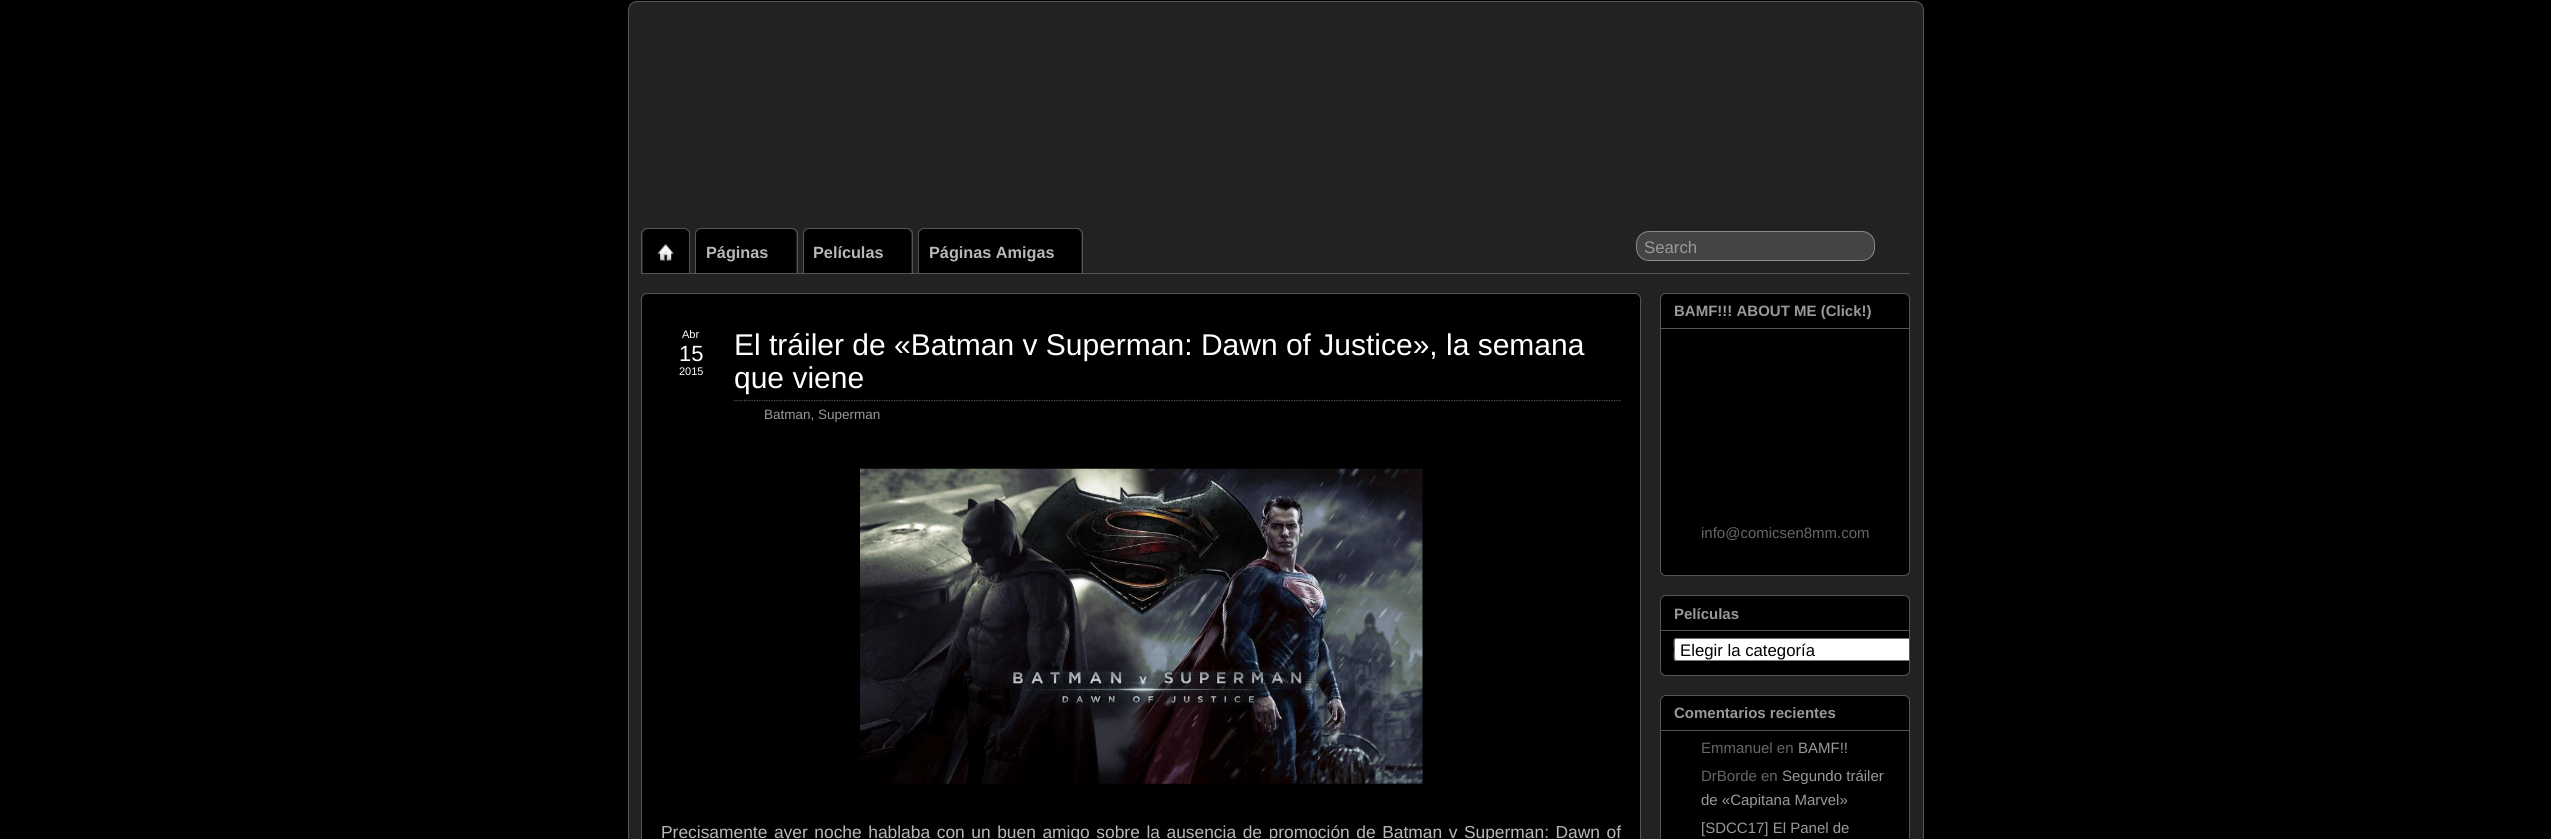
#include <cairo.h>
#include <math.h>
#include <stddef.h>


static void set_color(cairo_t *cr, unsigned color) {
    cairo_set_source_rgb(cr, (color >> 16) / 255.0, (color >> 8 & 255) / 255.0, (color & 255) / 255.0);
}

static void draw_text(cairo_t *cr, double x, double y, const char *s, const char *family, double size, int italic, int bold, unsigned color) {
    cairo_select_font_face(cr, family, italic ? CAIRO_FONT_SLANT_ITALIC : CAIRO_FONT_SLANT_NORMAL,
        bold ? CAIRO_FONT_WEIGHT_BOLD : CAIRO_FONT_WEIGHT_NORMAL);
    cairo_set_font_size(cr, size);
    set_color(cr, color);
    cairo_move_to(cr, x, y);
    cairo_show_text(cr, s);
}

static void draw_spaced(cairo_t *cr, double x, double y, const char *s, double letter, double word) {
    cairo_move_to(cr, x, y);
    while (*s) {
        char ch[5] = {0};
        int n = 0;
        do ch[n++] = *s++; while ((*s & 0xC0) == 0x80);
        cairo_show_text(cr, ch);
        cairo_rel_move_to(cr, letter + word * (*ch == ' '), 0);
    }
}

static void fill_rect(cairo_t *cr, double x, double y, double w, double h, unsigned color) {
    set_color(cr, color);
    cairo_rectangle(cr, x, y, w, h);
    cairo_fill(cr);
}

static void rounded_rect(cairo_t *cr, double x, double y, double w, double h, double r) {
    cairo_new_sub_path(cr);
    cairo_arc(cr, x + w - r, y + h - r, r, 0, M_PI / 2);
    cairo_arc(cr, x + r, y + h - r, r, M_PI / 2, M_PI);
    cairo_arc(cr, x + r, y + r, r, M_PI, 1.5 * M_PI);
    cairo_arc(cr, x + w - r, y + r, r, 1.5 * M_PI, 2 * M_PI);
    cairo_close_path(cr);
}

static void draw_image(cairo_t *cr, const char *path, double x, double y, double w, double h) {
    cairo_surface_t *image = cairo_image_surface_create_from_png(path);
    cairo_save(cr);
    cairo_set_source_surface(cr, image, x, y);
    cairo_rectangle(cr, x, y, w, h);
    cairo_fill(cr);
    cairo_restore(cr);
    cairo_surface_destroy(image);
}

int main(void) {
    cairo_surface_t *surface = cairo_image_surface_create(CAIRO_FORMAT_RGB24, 2551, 839);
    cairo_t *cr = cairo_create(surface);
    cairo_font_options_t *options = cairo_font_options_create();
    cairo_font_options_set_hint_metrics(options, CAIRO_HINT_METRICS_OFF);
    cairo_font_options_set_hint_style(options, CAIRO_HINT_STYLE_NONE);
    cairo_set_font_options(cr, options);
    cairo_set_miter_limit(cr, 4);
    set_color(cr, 0x000000);
    cairo_paint(cr);
    set_color(cr, 0x222222);
    rounded_rect(cr, 628.5, 1.5, 1295, 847, 8.5);
    cairo_fill_preserve(cr);
    set_color(cr, 0x555555);
    cairo_set_line_width(cr, 1);
    cairo_stroke(cr);
    fill_rect(cr, 690, 273, 1220, 1, 0x555555);
    cairo_new_path(cr);
    cairo_move_to(cr, 647, 228.5);
    cairo_line_to(cr, 684, 228.5);
    cairo_curve_to(cr, 687, 228.5, 689.5, 231, 689.5, 234);
    cairo_line_to(cr, 689.5, 273.5);
    cairo_line_to(cr, 641.5, 273.5);
    cairo_line_to(cr, 641.5, 234);
    cairo_curve_to(cr, 641.5, 231, 644, 228.5, 647, 228.5);
    cairo_close_path(cr);
    cairo_stroke(cr);
    set_color(cr, 0x000000);
    cairo_new_path(cr);
    cairo_move_to(cr, 649, 229);
    cairo_line_to(cr, 683, 229);
    cairo_curve_to(cr, 686.5, 229, 689, 231.5, 689, 235);
    cairo_line_to(cr, 689, 273);
    cairo_line_to(cr, 643, 273);
    cairo_line_to(cr, 643, 235);
    cairo_curve_to(cr, 643, 231.5, 645.5, 229, 649, 229);
    cairo_close_path(cr);
    cairo_fill(cr);
    draw_image(cr, "assets/img1.png", 657, 244, 17, 17);
    cairo_new_path(cr);
    cairo_move_to(cr, 701, 228.5);
    cairo_line_to(cr, 792, 228.5);
    cairo_curve_to(cr, 795, 228.5, 797.5, 231, 797.5, 234);
    cairo_line_to(cr, 797.5, 273.5);
    cairo_line_to(cr, 695.5, 273.5);
    cairo_line_to(cr, 695.5, 234);
    cairo_curve_to(cr, 695.5, 231, 698, 228.5, 701, 228.5);
    cairo_close_path(cr);
    set_color(cr, 0x555555);
    cairo_stroke(cr);
    set_color(cr, 0x000000);
    cairo_new_path(cr);
    cairo_move_to(cr, 702, 229);
    cairo_line_to(cr, 790, 229);
    cairo_curve_to(cr, 793.5, 229, 796, 231.5, 796, 235);
    cairo_line_to(cr, 796, 273);
    cairo_line_to(cr, 696, 273);
    cairo_line_to(cr, 696, 235);
    cairo_curve_to(cr, 696, 231.5, 698.5, 229, 702, 229);
    cairo_close_path(cr);
    cairo_fill(cr);
    draw_text(cr, 706, 258, "Páginas", "Liberation Sans", 16.25, 0, 1, 0xB8B8B8);
    cairo_new_path(cr);
    cairo_move_to(cr, 809, 228.5);
    cairo_line_to(cr, 907, 228.5);
    cairo_curve_to(cr, 910, 228.5, 912.5, 231, 912.5, 234);
    cairo_line_to(cr, 912.5, 273.5);
    cairo_line_to(cr, 803.5, 273.5);
    cairo_line_to(cr, 803.5, 234);
    cairo_curve_to(cr, 803.5, 231, 806, 228.5, 809, 228.5);
    cairo_close_path(cr);
    set_color(cr, 0x555555);
    cairo_stroke(cr);
    set_color(cr, 0x000000);
    cairo_new_path(cr);
    cairo_move_to(cr, 810, 229);
    cairo_line_to(cr, 905, 229);
    cairo_curve_to(cr, 908.5, 229, 911, 231.5, 911, 235);
    cairo_line_to(cr, 911, 273);
    cairo_line_to(cr, 804, 273);
    cairo_line_to(cr, 804, 235);
    cairo_curve_to(cr, 804, 231.5, 806.5, 229, 810, 229);
    cairo_close_path(cr);
    cairo_fill(cr);
    draw_text(cr, 813, 258, "Películas", "Liberation Sans", 16.25, 0, 1, 0xB8B8B8);
    cairo_new_path(cr);
    cairo_move_to(cr, 924, 228.5);
    cairo_line_to(cr, 1077, 228.5);
    cairo_curve_to(cr, 1080, 228.5, 1082.5, 231, 1082.5, 234);
    cairo_line_to(cr, 1082.5, 273.5);
    cairo_line_to(cr, 918.5, 273.5);
    cairo_line_to(cr, 918.5, 234);
    cairo_curve_to(cr, 918.5, 231, 921, 228.5, 924, 228.5);
    cairo_close_path(cr);
    set_color(cr, 0x555555);
    cairo_stroke(cr);
    set_color(cr, 0x000000);
    cairo_new_path(cr);
    cairo_move_to(cr, 925, 229);
    cairo_line_to(cr, 1075, 229);
    cairo_curve_to(cr, 1078.5, 229, 1081, 231.5, 1081, 235);
    cairo_line_to(cr, 1081, 273);
    cairo_line_to(cr, 919, 273);
    cairo_line_to(cr, 919, 235);
    cairo_curve_to(cr, 919, 231.5, 921.5, 229, 925, 229);
    cairo_close_path(cr);
    cairo_fill(cr);
    draw_text(cr, 929, 258, "Páginas Amigas", "Liberation Sans", 16.25, 0, 1, 0xB8B8B8);
    set_color(cr, 0x444444);
    rounded_rect(cr, 1636.5, 231.5, 238, 29, 12.5);
    cairo_fill_preserve(cr);
    set_color(cr, 0x888888);
    cairo_stroke(cr);
    draw_text(cr, 1644, 253, "Search", "Liberation Sans", 16.75, 0, 0, 0x999999);
    set_color(cr, 0x000000);
    rounded_rect(cr, 641.5, 293.5, 999, 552, 5.5);
    cairo_fill_preserve(cr);
    set_color(cr, 0x555555);
    cairo_stroke(cr);
    draw_text(cr, 682, 338, "Abr", "Liberation Sans", 11, 0, 0, 0xFFFFFF);
    draw_text(cr, 679, 361, "15", "Liberation Sans", 22, 0, 0, 0xFFFFFF);
    draw_text(cr, 679, 375, "2015", "Liberation Sans", 11, 0, 0, 0xFFFFFF);
    cairo_new_path(cr);
    cairo_move_to(cr, 734, 400.5);
    cairo_line_to(cr, 1621, 400.5);
    set_color(cr, 0x555555);
    cairo_set_line_width(cr, 1.2);
    cairo_set_dash(cr, (double[]){1.25, 1.25}, 2, 0);
    cairo_stroke(cr);
    draw_text(cr, 734, 355, "El tráiler de «Batman v Superman: Dawn of Justice», la semana", "Liberation Sans", 30, 0, 0, 0xFFFFFF);
    draw_text(cr, 734, 388, "que viene", "Liberation Sans", 30, 0, 0, 0xFFFFFF);
    draw_text(cr, 764, 419, "Batman, Superman", "Liberation Sans", 13.5, 0, 0, 0x999999);
    draw_image(cr, "assets/img2.png", 860, 468, 563, 316);
    cairo_save(cr);
    cairo_rectangle(cr, 661, 424, 960, 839);
    cairo_clip(cr);
    cairo_set_font_size(cr, 17.4);
    set_color(cr, 0xB8B8B8);
    draw_spaced(cr, 661, 838, "Precisamente ayer noche hablaba con un buen amigo sobre la ausencia de promoción de Batman v Superman: Dawn of", 0, 1.7);
    cairo_restore(cr);
    set_color(cr, 0x000000);
    rounded_rect(cr, 1660.5, 293.5, 249, 282, 5.5);
    cairo_fill_preserve(cr);
    set_color(cr, 0x555555);
    cairo_set_line_width(cr, 1);
    cairo_set_dash(cr, NULL, 0, 0);
    cairo_stroke(cr);
    fill_rect(cr, 1661, 328, 248, 1, 0x555555);
    draw_text(cr, 1674, 316, "BAMF!!! ABOUT ME (Click!)", "Liberation Sans", 15, 0, 1, 0x999999);
    draw_text(cr, 1701, 538, "info@comicsen8mm.com", "Liberation Sans", 15, 0, 0, 0x666666);
    set_color(cr, 0x000000);
    rounded_rect(cr, 1660.5, 595.5, 249, 80, 5.5);
    cairo_fill_preserve(cr);
    set_color(cr, 0x555555);
    cairo_stroke(cr);
    fill_rect(cr, 1661, 630, 248, 1, 0x555555);
    draw_text(cr, 1674, 619, "Películas", "Liberation Sans", 15, 0, 1, 0x999999);
    set_color(cr, 0xFFFFFF);
    cairo_new_path(cr);
    cairo_move_to(cr, 1676.5, 638);
    cairo_line_to(cr, 1909, 638);
    cairo_line_to(cr, 1909, 661);
    cairo_line_to(cr, 1676.5, 661);
    cairo_curve_to(cr, 1675, 661, 1674, 660, 1674, 658.5);
    cairo_line_to(cr, 1674, 640.5);
    cairo_curve_to(cr, 1674, 639, 1675, 638, 1676.5, 638);
    cairo_close_path(cr);
    cairo_fill(cr);
    set_color(cr, 0x767676);
    cairo_new_path(cr);
    cairo_move_to(cr, 1676, 638);
    cairo_curve_to(cr, 1672, 638, 1674, 647, 1674, 650);
    cairo_curve_to(cr, 1674, 652, 1672, 661, 1676, 661);
    cairo_line_to(cr, 1909, 661);
    cairo_line_to(cr, 1909, 660);
    cairo_line_to(cr, 1676, 660);
    cairo_curve_to(cr, 1676, 660, 1675, 659, 1675, 658);
    cairo_line_to(cr, 1675, 640);
    cairo_curve_to(cr, 1675, 640, 1676, 639, 1676, 639);
    cairo_line_to(cr, 1909, 639);
    cairo_line_to(cr, 1909, 638);
    cairo_close_path(cr);
    cairo_fill(cr);
    draw_text(cr, 1680, 656, "Elegir la categoría", "Liberation Sans", 16.75, 0, 0, 0x000000);
    rounded_rect(cr, 1660.5, 695.5, 249, 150, 5.5);
    cairo_fill_preserve(cr);
    set_color(cr, 0x555555);
    cairo_stroke(cr);
    fill_rect(cr, 1661, 730, 248, 1, 0x555555);
    draw_text(cr, 1674, 718, "Comentarios recientes", "Liberation Sans", 15, 0, 1, 0x999999);
    draw_text(cr, 1701, 753, "Emmanuel en", "Liberation Sans", 15, 0, 0, 0x666666);
    draw_text(cr, 1798, 753, "BAMF!!", "Liberation Sans", 15, 0, 0, 0x999999);
    draw_text(cr, 1701, 781, "DrBorde en", "Liberation Sans", 15, 0, 0, 0x666666);
    draw_text(cr, 1782, 781, "Segundo tráiler", "Liberation Sans", 15, 0, 0, 0x999999);
    draw_text(cr, 1701, 805, "de «Capitana Marvel»", "Liberation Sans", 15, 0, 0, 0x999999);
    draw_text(cr, 1701, 833, "[SDCC17] El Panel de", "Liberation Sans", 15, 0, 0, 0x999999);
    cairo_surface_write_to_png(surface, "output.png");
    cairo_font_options_destroy(options);
    cairo_destroy(cr);
    cairo_surface_destroy(surface);
    return 0;
}
